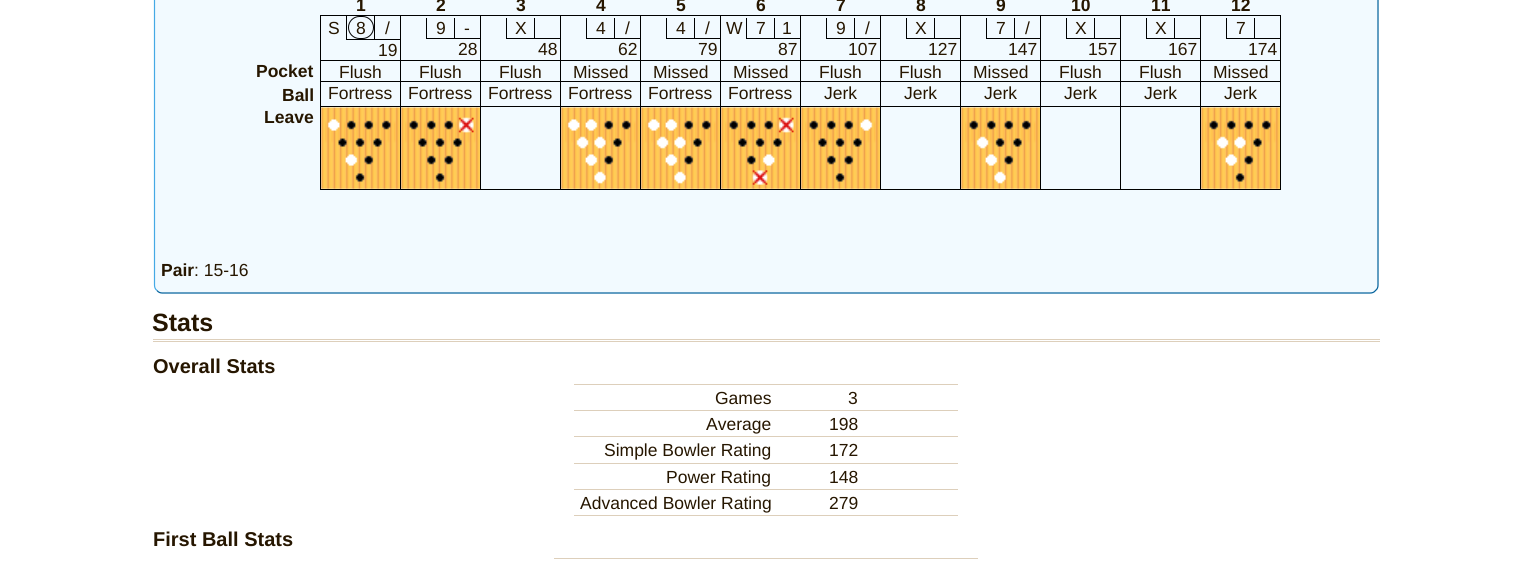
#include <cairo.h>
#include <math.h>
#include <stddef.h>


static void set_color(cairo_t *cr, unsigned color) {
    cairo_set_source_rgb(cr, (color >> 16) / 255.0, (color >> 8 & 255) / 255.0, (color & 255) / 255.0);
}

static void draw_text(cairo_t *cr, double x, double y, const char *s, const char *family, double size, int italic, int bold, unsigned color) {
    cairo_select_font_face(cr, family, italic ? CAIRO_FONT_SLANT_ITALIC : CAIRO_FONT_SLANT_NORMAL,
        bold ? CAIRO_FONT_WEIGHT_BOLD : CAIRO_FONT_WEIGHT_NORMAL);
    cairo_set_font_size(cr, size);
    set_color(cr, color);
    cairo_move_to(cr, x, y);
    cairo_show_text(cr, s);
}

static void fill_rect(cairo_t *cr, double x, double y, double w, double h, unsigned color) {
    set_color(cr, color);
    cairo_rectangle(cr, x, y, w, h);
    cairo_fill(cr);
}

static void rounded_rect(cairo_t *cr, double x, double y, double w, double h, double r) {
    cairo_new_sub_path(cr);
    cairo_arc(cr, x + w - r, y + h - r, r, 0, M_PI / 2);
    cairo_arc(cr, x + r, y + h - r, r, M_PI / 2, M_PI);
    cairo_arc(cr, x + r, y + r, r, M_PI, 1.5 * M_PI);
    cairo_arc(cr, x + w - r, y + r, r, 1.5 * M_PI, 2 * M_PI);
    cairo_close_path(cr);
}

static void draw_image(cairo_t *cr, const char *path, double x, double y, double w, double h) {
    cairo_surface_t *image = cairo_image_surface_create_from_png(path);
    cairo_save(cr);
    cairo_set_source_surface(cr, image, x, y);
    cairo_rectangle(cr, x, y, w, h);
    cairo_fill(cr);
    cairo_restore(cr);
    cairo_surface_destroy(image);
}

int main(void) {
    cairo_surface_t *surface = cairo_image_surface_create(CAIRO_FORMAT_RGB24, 1531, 571);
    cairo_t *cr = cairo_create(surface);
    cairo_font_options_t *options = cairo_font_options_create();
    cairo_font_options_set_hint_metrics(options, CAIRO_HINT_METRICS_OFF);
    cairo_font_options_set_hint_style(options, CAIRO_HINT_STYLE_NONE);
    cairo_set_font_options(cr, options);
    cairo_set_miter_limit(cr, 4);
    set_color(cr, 0xFFFFFF);
    cairo_paint(cr);
    set_color(cr, 0xF2FAFF);
    rounded_rect(cr, 154, -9, 1225, 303, 9);
    cairo_fill(cr);
    cairo_new_path(cr);
    cairo_move_to(cr, 1375.5, -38);
    cairo_curve_to(cr, 1377.5, -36.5, 1378, -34.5, 1378, -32.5);
    cairo_line_to(cr, 1378, 285);
    cairo_curve_to(cr, 1378, 287, 1377.5, 289, 1375.5, 290.5);
    cairo_curve_to(cr, 1374, 292.5, 1372, 293, 1370, 293);
    cairo_line_to(cr, 162.5, 293);
    cairo_curve_to(cr, 160.5, 293, 158.5, 292.5, 157, 290.5);
    set_color(cr, 0x005F99);
    cairo_set_line_width(cr, 1.2);
    cairo_stroke(cr);
    cairo_new_path(cr);
    cairo_move_to(cr, 157, 290.5);
    cairo_curve_to(cr, 155, 289, 154.5, 287, 154.5, 285);
    cairo_line_to(cr, 154.5, -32.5);
    cairo_curve_to(cr, 154.5, -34.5, 155, -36.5, 157, -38);
    cairo_curve_to(cr, 158.5, -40, 160.5, -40.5, 162.5, -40.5);
    cairo_line_to(cr, 1370, -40.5);
    cairo_curve_to(cr, 1372, -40.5, 1374, -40, 1375.5, -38);
    set_color(cr, 0x45A9E5);
    cairo_stroke(cr);
    draw_text(cr, 356, 11, "1", "Liberation Sans", 17.5, 0, 1, 0x261600);
    draw_text(cr, 436, 11, "2", "Liberation Sans", 17.5, 0, 1, 0x261600);
    draw_text(cr, 516, 11, "3", "Liberation Sans", 17.5, 0, 1, 0x261600);
    draw_text(cr, 596, 11, "4", "Liberation Sans", 17.5, 0, 1, 0x261600);
    draw_text(cr, 676, 11, "5", "Liberation Sans", 17.5, 0, 1, 0x261600);
    draw_text(cr, 756, 11, "6", "Liberation Sans", 17.5, 0, 1, 0x261600);
    draw_text(cr, 836, 11, "7", "Liberation Sans", 17.5, 0, 1, 0x261600);
    draw_text(cr, 916, 11, "8", "Liberation Sans", 17.5, 0, 1, 0x261600);
    draw_text(cr, 996, 11, "9", "Liberation Sans", 17.5, 0, 1, 0x261600);
    draw_text(cr, 1071, 11, "10", "Liberation Sans", 17.5, 0, 1, 0x261600);
    draw_text(cr, 1151, 11, "11", "Liberation Sans", 17.5, 0, 1, 0x261600);
    draw_text(cr, 1231, 11, "12", "Liberation Sans", 17.5, 0, 1, 0x261600);
    fill_rect(cr, 1200, 15, 81, 1, 0x000000);
    fill_rect(cr, 1200, 60, 81, 1, 0x000000);
    fill_rect(cr, 1200, 81, 81, 1, 0x000000);
    fill_rect(cr, 1200, 106, 81, 1, 0x000000);
    fill_rect(cr, 1280, 106, 1, 84, 0x000000);
    fill_rect(cr, 1200, 189, 81, 1, 0x000000);
    fill_rect(cr, 1200, 106, 1, 84, 0x000000);
    fill_rect(cr, 1120, 106, 81, 1, 0x000000);
    fill_rect(cr, 1200, 81, 1, 27, 0x000000);
    fill_rect(cr, 1120, 81, 81, 1, 0x000000);
    fill_rect(cr, 1200, 60, 1, 23, 0x000000);
    fill_rect(cr, 1120, 60, 81, 1, 0x000000);
    fill_rect(cr, 1200, 15, 1, 46, 0x000000);
    fill_rect(cr, 1120, 15, 81, 1, 0x000000);
    fill_rect(cr, 1120, 189, 81, 1, 0x000000);
    fill_rect(cr, 1120, 106, 1, 84, 0x000000);
    fill_rect(cr, 1040, 106, 81, 1, 0x000000);
    fill_rect(cr, 1120, 81, 1, 27, 0x000000);
    fill_rect(cr, 1040, 81, 81, 1, 0x000000);
    fill_rect(cr, 1120, 60, 1, 23, 0x000000);
    fill_rect(cr, 1040, 60, 81, 1, 0x000000);
    fill_rect(cr, 1120, 15, 1, 46, 0x000000);
    fill_rect(cr, 1040, 15, 81, 1, 0x000000);
    fill_rect(cr, 1040, 189, 81, 1, 0x000000);
    fill_rect(cr, 1040, 106, 1, 84, 0x000000);
    fill_rect(cr, 960, 106, 81, 1, 0x000000);
    fill_rect(cr, 1040, 81, 1, 27, 0x000000);
    fill_rect(cr, 960, 81, 81, 1, 0x000000);
    fill_rect(cr, 1040, 60, 1, 23, 0x000000);
    fill_rect(cr, 960, 60, 81, 1, 0x000000);
    fill_rect(cr, 1040, 15, 1, 46, 0x000000);
    fill_rect(cr, 960, 15, 81, 1, 0x000000);
    fill_rect(cr, 960, 189, 81, 1, 0x000000);
    fill_rect(cr, 960, 106, 1, 84, 0x000000);
    fill_rect(cr, 880, 106, 81, 1, 0x000000);
    fill_rect(cr, 960, 81, 1, 27, 0x000000);
    fill_rect(cr, 880, 81, 81, 1, 0x000000);
    fill_rect(cr, 960, 60, 1, 23, 0x000000);
    fill_rect(cr, 880, 60, 81, 1, 0x000000);
    fill_rect(cr, 960, 15, 1, 46, 0x000000);
    fill_rect(cr, 880, 15, 81, 1, 0x000000);
    fill_rect(cr, 880, 189, 81, 1, 0x000000);
    fill_rect(cr, 880, 106, 1, 84, 0x000000);
    fill_rect(cr, 800, 106, 81, 1, 0x000000);
    fill_rect(cr, 880, 81, 1, 27, 0x000000);
    fill_rect(cr, 800, 81, 81, 1, 0x000000);
    fill_rect(cr, 880, 60, 1, 23, 0x000000);
    fill_rect(cr, 800, 60, 81, 1, 0x000000);
    fill_rect(cr, 880, 15, 1, 46, 0x000000);
    fill_rect(cr, 800, 15, 81, 1, 0x000000);
    fill_rect(cr, 800, 189, 81, 1, 0x000000);
    fill_rect(cr, 800, 106, 1, 84, 0x000000);
    fill_rect(cr, 720, 106, 81, 1, 0x000000);
    fill_rect(cr, 800, 81, 1, 27, 0x000000);
    fill_rect(cr, 720, 81, 81, 1, 0x000000);
    fill_rect(cr, 800, 60, 1, 23, 0x000000);
    fill_rect(cr, 720, 60, 81, 1, 0x000000);
    fill_rect(cr, 800, 15, 1, 46, 0x000000);
    fill_rect(cr, 720, 15, 81, 1, 0x000000);
    fill_rect(cr, 720, 189, 81, 1, 0x000000);
    fill_rect(cr, 720, 106, 1, 84, 0x000000);
    fill_rect(cr, 640, 106, 81, 1, 0x000000);
    fill_rect(cr, 720, 81, 1, 27, 0x000000);
    fill_rect(cr, 640, 81, 81, 1, 0x000000);
    fill_rect(cr, 720, 60, 1, 23, 0x000000);
    fill_rect(cr, 640, 60, 81, 1, 0x000000);
    fill_rect(cr, 720, 15, 1, 46, 0x000000);
    fill_rect(cr, 640, 15, 81, 1, 0x000000);
    fill_rect(cr, 640, 189, 81, 1, 0x000000);
    fill_rect(cr, 640, 106, 1, 84, 0x000000);
    fill_rect(cr, 560, 106, 81, 1, 0x000000);
    fill_rect(cr, 640, 81, 1, 27, 0x000000);
    fill_rect(cr, 560, 81, 81, 1, 0x000000);
    fill_rect(cr, 640, 60, 1, 23, 0x000000);
    fill_rect(cr, 560, 60, 81, 1, 0x000000);
    fill_rect(cr, 640, 15, 1, 46, 0x000000);
    fill_rect(cr, 560, 15, 81, 1, 0x000000);
    fill_rect(cr, 560, 189, 81, 1, 0x000000);
    fill_rect(cr, 560, 106, 1, 84, 0x000000);
    fill_rect(cr, 480, 106, 81, 1, 0x000000);
    fill_rect(cr, 560, 81, 1, 27, 0x000000);
    fill_rect(cr, 480, 81, 81, 1, 0x000000);
    fill_rect(cr, 560, 60, 1, 23, 0x000000);
    fill_rect(cr, 480, 60, 81, 1, 0x000000);
    fill_rect(cr, 560, 15, 1, 46, 0x000000);
    fill_rect(cr, 480, 15, 81, 1, 0x000000);
    fill_rect(cr, 480, 189, 81, 1, 0x000000);
    fill_rect(cr, 480, 106, 1, 84, 0x000000);
    fill_rect(cr, 400, 106, 81, 1, 0x000000);
    fill_rect(cr, 480, 81, 1, 27, 0x000000);
    fill_rect(cr, 400, 81, 81, 1, 0x000000);
    fill_rect(cr, 480, 60, 1, 23, 0x000000);
    fill_rect(cr, 400, 60, 81, 1, 0x000000);
    fill_rect(cr, 480, 15, 1, 46, 0x000000);
    fill_rect(cr, 400, 15, 81, 1, 0x000000);
    fill_rect(cr, 400, 189, 81, 1, 0x000000);
    fill_rect(cr, 400, 106, 1, 84, 0x000000);
    fill_rect(cr, 320, 106, 81, 1, 0x000000);
    fill_rect(cr, 400, 81, 1, 27, 0x000000);
    fill_rect(cr, 320, 81, 81, 1, 0x000000);
    fill_rect(cr, 400, 60, 1, 23, 0x000000);
    fill_rect(cr, 320, 60, 81, 1, 0x000000);
    fill_rect(cr, 400, 15, 1, 46, 0x000000);
    fill_rect(cr, 320, 15, 81, 1, 0x000000);
    fill_rect(cr, 320, 189, 81, 1, 0x000000);
    fill_rect(cr, 320, 106, 1, 84, 0x000000);
    fill_rect(cr, 320, 81, 1, 27, 0x000000);
    fill_rect(cr, 320, 60, 1, 23, 0x000000);
    fill_rect(cr, 320, 15, 1, 46, 0x000000);
    draw_text(cr, 328, 34, "S", "Liberation Sans", 17.5, 0, 0, 0x261600);
    fill_rect(cr, 374, 39, 26, 1, 0x000000);
    fill_rect(cr, 374, 16, 1, 24, 0x000000);
    fill_rect(cr, 346, 39, 29, 1, 0x000000);
    fill_rect(cr, 346, 16, 1, 24, 0x000000);
    rounded_rect(cr, 348.5, 16.5, 25, 22, 11);
    cairo_set_line_width(cr, 1);
    cairo_stroke(cr);
    draw_text(cr, 356, 34, "8", "Liberation Sans", 17.5, 0, 0, 0x261600);
    draw_text(cr, 385, 34, "/", "Liberation Sans", 17.5, 0, 0, 0x261600);
    draw_text(cr, 378, 56, "19", "Liberation Sans", 17.5, 0, 0, 0x261600);
    fill_rect(cr, 454, 38, 26, 1, 0x000000);
    fill_rect(cr, 454, 18, 1, 21, 0x000000);
    fill_rect(cr, 426, 38, 29, 1, 0x000000);
    fill_rect(cr, 426, 18, 1, 21, 0x000000);
    draw_text(cr, 436, 34, "9", "Liberation Sans", 17.5, 0, 0, 0x261600);
    draw_text(cr, 464, 34, "-", "Liberation Sans", 17.5, 0, 0, 0x261600);
    draw_text(cr, 458, 55, "28", "Liberation Sans", 17.5, 0, 0, 0x261600);
    fill_rect(cr, 534, 38, 26, 1, 0x000000);
    fill_rect(cr, 534, 18, 1, 21, 0x000000);
    fill_rect(cr, 506, 38, 29, 1, 0x000000);
    fill_rect(cr, 506, 18, 1, 21, 0x000000);
    draw_text(cr, 515, 34, "X", "Liberation Sans", 17.5, 0, 0, 0x261600);
    draw_text(cr, 538, 55, "48", "Liberation Sans", 17.5, 0, 0, 0x261600);
    fill_rect(cr, 614, 38, 26, 1, 0x000000);
    fill_rect(cr, 614, 18, 1, 21, 0x000000);
    fill_rect(cr, 586, 38, 29, 1, 0x000000);
    fill_rect(cr, 586, 18, 1, 21, 0x000000);
    draw_text(cr, 596, 34, "4", "Liberation Sans", 17.5, 0, 0, 0x261600);
    draw_text(cr, 625, 34, "/", "Liberation Sans", 17.5, 0, 0, 0x261600);
    draw_text(cr, 618, 55, "62", "Liberation Sans", 17.5, 0, 0, 0x261600);
    fill_rect(cr, 694, 38, 26, 1, 0x000000);
    fill_rect(cr, 694, 18, 1, 21, 0x000000);
    fill_rect(cr, 666, 38, 29, 1, 0x000000);
    fill_rect(cr, 666, 18, 1, 21, 0x000000);
    draw_text(cr, 676, 34, "4", "Liberation Sans", 17.5, 0, 0, 0x261600);
    draw_text(cr, 705, 34, "/", "Liberation Sans", 17.5, 0, 0, 0x261600);
    draw_text(cr, 698, 55, "79", "Liberation Sans", 17.5, 0, 0, 0x261600);
    draw_text(cr, 726, 34, "W", "Liberation Sans", 17.5, 0, 0, 0x261600);
    fill_rect(cr, 774, 38, 26, 1, 0x000000);
    fill_rect(cr, 774, 18, 1, 21, 0x000000);
    fill_rect(cr, 746, 38, 29, 1, 0x000000);
    fill_rect(cr, 746, 18, 1, 21, 0x000000);
    draw_text(cr, 756, 34, "7", "Liberation Sans", 17.5, 0, 0, 0x261600);
    draw_text(cr, 782, 34, "1", "Liberation Sans", 17.5, 0, 0, 0x261600);
    draw_text(cr, 778, 55, "87", "Liberation Sans", 17.5, 0, 0, 0x261600);
    fill_rect(cr, 854, 38, 26, 1, 0x000000);
    fill_rect(cr, 854, 18, 1, 21, 0x000000);
    fill_rect(cr, 826, 38, 29, 1, 0x000000);
    fill_rect(cr, 826, 18, 1, 21, 0x000000);
    draw_text(cr, 836, 34, "9", "Liberation Sans", 17.5, 0, 0, 0x261600);
    draw_text(cr, 865, 34, "/", "Liberation Sans", 17.5, 0, 0, 0x261600);
    draw_text(cr, 848, 55, "107", "Liberation Sans", 17.5, 0, 0, 0x261600);
    fill_rect(cr, 934, 38, 26, 1, 0x000000);
    fill_rect(cr, 934, 18, 1, 21, 0x000000);
    fill_rect(cr, 906, 38, 29, 1, 0x000000);
    fill_rect(cr, 906, 18, 1, 21, 0x000000);
    draw_text(cr, 915, 34, "X", "Liberation Sans", 17.5, 0, 0, 0x261600);
    draw_text(cr, 928, 55, "127", "Liberation Sans", 17.5, 0, 0, 0x261600);
    fill_rect(cr, 1014, 38, 26, 1, 0x000000);
    fill_rect(cr, 1014, 18, 1, 21, 0x000000);
    fill_rect(cr, 986, 38, 29, 1, 0x000000);
    fill_rect(cr, 986, 18, 1, 21, 0x000000);
    draw_text(cr, 996, 34, "7", "Liberation Sans", 17.5, 0, 0, 0x261600);
    draw_text(cr, 1025, 34, "/", "Liberation Sans", 17.5, 0, 0, 0x261600);
    draw_text(cr, 1008, 55, "147", "Liberation Sans", 17.5, 0, 0, 0x261600);
    fill_rect(cr, 1094, 38, 26, 1, 0x000000);
    fill_rect(cr, 1094, 18, 1, 21, 0x000000);
    fill_rect(cr, 1066, 38, 29, 1, 0x000000);
    fill_rect(cr, 1066, 18, 1, 21, 0x000000);
    draw_text(cr, 1075, 34, "X", "Liberation Sans", 17.5, 0, 0, 0x261600);
    draw_text(cr, 1088, 55, "157", "Liberation Sans", 17.5, 0, 0, 0x261600);
    fill_rect(cr, 1174, 38, 26, 1, 0x000000);
    fill_rect(cr, 1174, 18, 1, 21, 0x000000);
    fill_rect(cr, 1146, 38, 29, 1, 0x000000);
    fill_rect(cr, 1146, 18, 1, 21, 0x000000);
    draw_text(cr, 1155, 34, "X", "Liberation Sans", 17.5, 0, 0, 0x261600);
    draw_text(cr, 1168, 55, "167", "Liberation Sans", 17.5, 0, 0, 0x261600);
    fill_rect(cr, 1280, 81, 1, 27, 0x000000);
    fill_rect(cr, 1280, 60, 1, 23, 0x000000);
    fill_rect(cr, 1280, 15, 1, 46, 0x000000);
    fill_rect(cr, 1254, 38, 26, 1, 0x000000);
    fill_rect(cr, 1254, 18, 1, 21, 0x000000);
    fill_rect(cr, 1226, 38, 29, 1, 0x000000);
    fill_rect(cr, 1226, 18, 1, 21, 0x000000);
    draw_text(cr, 1236, 34, "7", "Liberation Sans", 17.5, 0, 0, 0x261600);
    draw_text(cr, 1248, 55, "174", "Liberation Sans", 17.5, 0, 0, 0x261600);
    draw_text(cr, 256, 77, "Pocket", "Liberation Sans", 17.5, 0, 1, 0x261600);
    draw_text(cr, 339, 78, "Flush", "Liberation Sans", 17.5, 0, 0, 0x261600);
    draw_text(cr, 419, 78, "Flush", "Liberation Sans", 17.5, 0, 0, 0x261600);
    draw_text(cr, 499, 78, "Flush", "Liberation Sans", 17.5, 0, 0, 0x261600);
    draw_text(cr, 573, 78, "Missed", "Liberation Sans", 17.5, 0, 0, 0x261600);
    draw_text(cr, 653, 78, "Missed", "Liberation Sans", 17.5, 0, 0, 0x261600);
    draw_text(cr, 733, 78, "Missed", "Liberation Sans", 17.5, 0, 0, 0x261600);
    draw_text(cr, 819, 78, "Flush", "Liberation Sans", 17.5, 0, 0, 0x261600);
    draw_text(cr, 899, 78, "Flush", "Liberation Sans", 17.5, 0, 0, 0x261600);
    draw_text(cr, 973, 78, "Missed", "Liberation Sans", 17.5, 0, 0, 0x261600);
    draw_text(cr, 1059, 78, "Flush", "Liberation Sans", 17.5, 0, 0, 0x261600);
    draw_text(cr, 1139, 78, "Flush", "Liberation Sans", 17.5, 0, 0, 0x261600);
    draw_text(cr, 1213, 78, "Missed", "Liberation Sans", 17.5, 0, 0, 0x261600);
    draw_text(cr, 282, 101, "Ball", "Liberation Sans", 17.5, 0, 1, 0x261600);
    draw_text(cr, 328, 99, "Fortress", "Liberation Sans", 17.5, 0, 0, 0x261600);
    draw_text(cr, 408, 99, "Fortress", "Liberation Sans", 17.5, 0, 0, 0x261600);
    draw_text(cr, 488, 99, "Fortress", "Liberation Sans", 17.5, 0, 0, 0x261600);
    draw_text(cr, 568, 99, "Fortress", "Liberation Sans", 17.5, 0, 0, 0x261600);
    draw_text(cr, 648, 99, "Fortress", "Liberation Sans", 17.5, 0, 0, 0x261600);
    draw_text(cr, 728, 99, "Fortress", "Liberation Sans", 17.5, 0, 0, 0x261600);
    draw_text(cr, 824, 99, "Jerk", "Liberation Sans", 17.5, 0, 0, 0x261600);
    draw_text(cr, 904, 99, "Jerk", "Liberation Sans", 17.5, 0, 0, 0x261600);
    draw_text(cr, 984, 99, "Jerk", "Liberation Sans", 17.5, 0, 0, 0x261600);
    draw_text(cr, 1064, 99, "Jerk", "Liberation Sans", 17.5, 0, 0, 0x261600);
    draw_text(cr, 1144, 99, "Jerk", "Liberation Sans", 17.5, 0, 0, 0x261600);
    draw_text(cr, 1224, 99, "Jerk", "Liberation Sans", 17.5, 0, 0, 0x261600);
    draw_text(cr, 264, 123, "Leave", "Liberation Sans", 17.5, 0, 1, 0x261600);
    draw_image(cr, "assets/img1.png", 321, 107, 79, 82);
    draw_image(cr, "assets/img2.png", 327, 119, 13, 12);
    draw_image(cr, "assets/img3.png", 347, 120, 9, 10);
    draw_image(cr, "assets/img4.png", 364, 120, 10, 10);
    draw_image(cr, "assets/img5.png", 382, 120, 9, 10);
    draw_image(cr, "assets/img6.png", 338, 138, 9, 9);
    draw_image(cr, "assets/img7.png", 355, 138, 10, 9);
    draw_image(cr, "assets/img8.png", 373, 138, 9, 9);
    draw_image(cr, "assets/img9.png", 345, 154, 13, 12);
    draw_image(cr, "assets/img10.png", 364, 155, 10, 10);
    draw_image(cr, "assets/img11.png", 355, 173, 10, 9);
    draw_image(cr, "assets/img1.png", 401, 107, 79, 82);
    draw_image(cr, "assets/img12.png", 409, 120, 10, 10);
    draw_image(cr, "assets/img3.png", 427, 120, 9, 10);
    draw_image(cr, "assets/img4.png", 444, 120, 10, 10);
    draw_image(cr, "assets/img13.png", 458, 117, 16, 16);
    draw_image(cr, "assets/img6.png", 418, 138, 9, 9);
    draw_image(cr, "assets/img7.png", 435, 138, 10, 9);
    draw_image(cr, "assets/img14.png", 453, 138, 9, 9);
    draw_image(cr, "assets/img15.png", 427, 155, 9, 10);
    draw_image(cr, "assets/img10.png", 444, 155, 10, 10);
    draw_image(cr, "assets/img11.png", 435, 173, 10, 9);
    draw_image(cr, "assets/img16.png", 561, 107, 79, 82);
    draw_image(cr, "assets/img17.png", 567, 119, 13, 12);
    draw_image(cr, "assets/img18.png", 585, 119, 13, 12);
    draw_image(cr, "assets/img4.png", 604, 120, 10, 10);
    draw_image(cr, "assets/img5.png", 622, 120, 9, 10);
    draw_image(cr, "assets/img19.png", 576, 136, 13, 13);
    draw_image(cr, "assets/img20.png", 594, 136, 12, 13);
    draw_image(cr, "assets/img14.png", 613, 138, 9, 9);
    draw_image(cr, "assets/img9.png", 585, 154, 13, 12);
    draw_image(cr, "assets/img10.png", 604, 155, 10, 10);
    draw_image(cr, "assets/img21.png", 594, 171, 12, 13);
    draw_image(cr, "assets/img22.png", 641, 107, 79, 82);
    draw_image(cr, "assets/img2.png", 647, 119, 13, 12);
    draw_image(cr, "assets/img23.png", 665, 119, 13, 12);
    draw_image(cr, "assets/img4.png", 684, 120, 10, 10);
    draw_image(cr, "assets/img24.png", 702, 120, 9, 10);
    draw_image(cr, "assets/img19.png", 656, 136, 13, 13);
    draw_image(cr, "assets/img25.png", 674, 136, 12, 13);
    draw_image(cr, "assets/img14.png", 693, 138, 9, 9);
    draw_image(cr, "assets/img26.png", 665, 154, 13, 12);
    draw_image(cr, "assets/img10.png", 684, 155, 10, 10);
    draw_image(cr, "assets/img27.png", 674, 171, 12, 13);
    draw_image(cr, "assets/img1.png", 721, 107, 79, 82);
    draw_image(cr, "assets/img12.png", 729, 120, 10, 10);
    draw_image(cr, "assets/img3.png", 747, 120, 9, 10);
    draw_image(cr, "assets/img4.png", 764, 120, 10, 10);
    draw_image(cr, "assets/img13.png", 778, 117, 16, 16);
    draw_image(cr, "assets/img6.png", 738, 138, 9, 9);
    draw_image(cr, "assets/img7.png", 755, 138, 10, 9);
    draw_image(cr, "assets/img8.png", 773, 138, 9, 9);
    draw_image(cr, "assets/img15.png", 747, 155, 9, 10);
    draw_image(cr, "assets/img28.png", 762, 154, 13, 12);
    draw_image(cr, "assets/img29.png", 752, 170, 16, 15);
    draw_image(cr, "assets/img1.png", 801, 107, 79, 82);
    draw_image(cr, "assets/img12.png", 809, 120, 10, 10);
    draw_image(cr, "assets/img3.png", 827, 120, 9, 10);
    draw_image(cr, "assets/img4.png", 844, 120, 10, 10);
    draw_image(cr, "assets/img30.png", 860, 119, 13, 12);
    draw_image(cr, "assets/img6.png", 818, 138, 9, 9);
    draw_image(cr, "assets/img7.png", 835, 138, 10, 9);
    draw_image(cr, "assets/img8.png", 853, 138, 9, 9);
    draw_image(cr, "assets/img15.png", 827, 155, 9, 10);
    draw_image(cr, "assets/img10.png", 844, 155, 10, 10);
    draw_image(cr, "assets/img11.png", 835, 173, 10, 9);
    draw_image(cr, "assets/img31.png", 961, 107, 79, 82);
    draw_image(cr, "assets/img12.png", 969, 120, 10, 10);
    draw_image(cr, "assets/img32.png", 987, 120, 9, 10);
    draw_image(cr, "assets/img4.png", 1004, 120, 10, 10);
    draw_image(cr, "assets/img5.png", 1022, 120, 9, 10);
    draw_image(cr, "assets/img19.png", 976, 136, 13, 13);
    draw_image(cr, "assets/img7.png", 995, 138, 10, 9);
    draw_image(cr, "assets/img8.png", 1013, 138, 9, 9);
    draw_image(cr, "assets/img33.png", 985, 154, 13, 12);
    draw_image(cr, "assets/img10.png", 1004, 155, 10, 10);
    draw_image(cr, "assets/img21.png", 994, 171, 12, 13);
    draw_image(cr, "assets/img22.png", 1201, 107, 79, 82);
    draw_image(cr, "assets/img12.png", 1209, 120, 10, 10);
    draw_image(cr, "assets/img3.png", 1227, 120, 9, 10);
    draw_image(cr, "assets/img4.png", 1244, 120, 10, 10);
    draw_image(cr, "assets/img24.png", 1262, 120, 9, 10);
    draw_image(cr, "assets/img19.png", 1216, 136, 13, 13);
    draw_image(cr, "assets/img25.png", 1234, 136, 12, 13);
    draw_image(cr, "assets/img8.png", 1253, 138, 9, 9);
    draw_image(cr, "assets/img26.png", 1225, 154, 13, 12);
    draw_image(cr, "assets/img10.png", 1244, 155, 10, 10);
    draw_image(cr, "assets/img34.png", 1235, 173, 10, 9);
    draw_text(cr, 161, 276, "Pair", "Liberation Sans", 17.5, 0, 1, 0x261600);
    draw_text(cr, 194, 276, ": 15-16", "Liberation Sans", 17.5, 0, 0, 0x261600);
    fill_rect(cr, 153, 339, 1227, 1, 0xDDCFBB);
    fill_rect(cr, 153, 341, 1227, 1, 0xDDCFBB);
    draw_text(cr, 152, 331, "Stats", "Liberation Sans", 25, 0, 1, 0x261600);
    draw_text(cr, 153, 373, "Overall Stats", "Liberation Sans", 20, 0, 1, 0x261600);
    fill_rect(cr, 574, 384, 384, 1, 0xDDCFBB);
    draw_text(cr, 715, 404, "Games", "Liberation Sans", 17.5, 0, 0, 0x261600);
    draw_text(cr, 848, 404, "3", "Liberation Sans", 17.5, 0, 0, 0x261600);
    fill_rect(cr, 574, 410, 384, 1, 0xDDCFBB);
    draw_text(cr, 706, 430, "Average", "Liberation Sans", 17.5, 0, 0, 0x261600);
    draw_text(cr, 829, 430, "198", "Liberation Sans", 17.5, 0, 0, 0x261600);
    fill_rect(cr, 574, 436, 384, 1, 0xDDCFBB);
    draw_text(cr, 604, 456, "Simple Bowler Rating", "Liberation Sans", 17.5, 0, 0, 0x261600);
    draw_text(cr, 829, 456, "172", "Liberation Sans", 17.5, 0, 0, 0x261600);
    fill_rect(cr, 574, 463, 384, 1, 0xDDCFBB);
    draw_text(cr, 666, 483, "Power Rating", "Liberation Sans", 17.5, 0, 0, 0x261600);
    draw_text(cr, 829, 483, "148", "Liberation Sans", 17.5, 0, 0, 0x261600);
    fill_rect(cr, 574, 489, 384, 1, 0xDDCFBB);
    fill_rect(cr, 574, 515, 384, 1, 0xDDCFBB);
    draw_text(cr, 580, 509, "Advanced Bowler Rating", "Liberation Sans", 17.5, 0, 0, 0x261600);
    draw_text(cr, 829, 509, "279", "Liberation Sans", 17.5, 0, 0, 0x261600);
    draw_text(cr, 153, 546, "First Ball Stats", "Liberation Sans", 20, 0, 1, 0x261600);
    fill_rect(cr, 554, 558, 424, 1, 0xDDCFBB);
    cairo_surface_write_to_png(surface, "output.png");
    cairo_font_options_destroy(options);
    cairo_destroy(cr);
    cairo_surface_destroy(surface);
    return 0;
}
